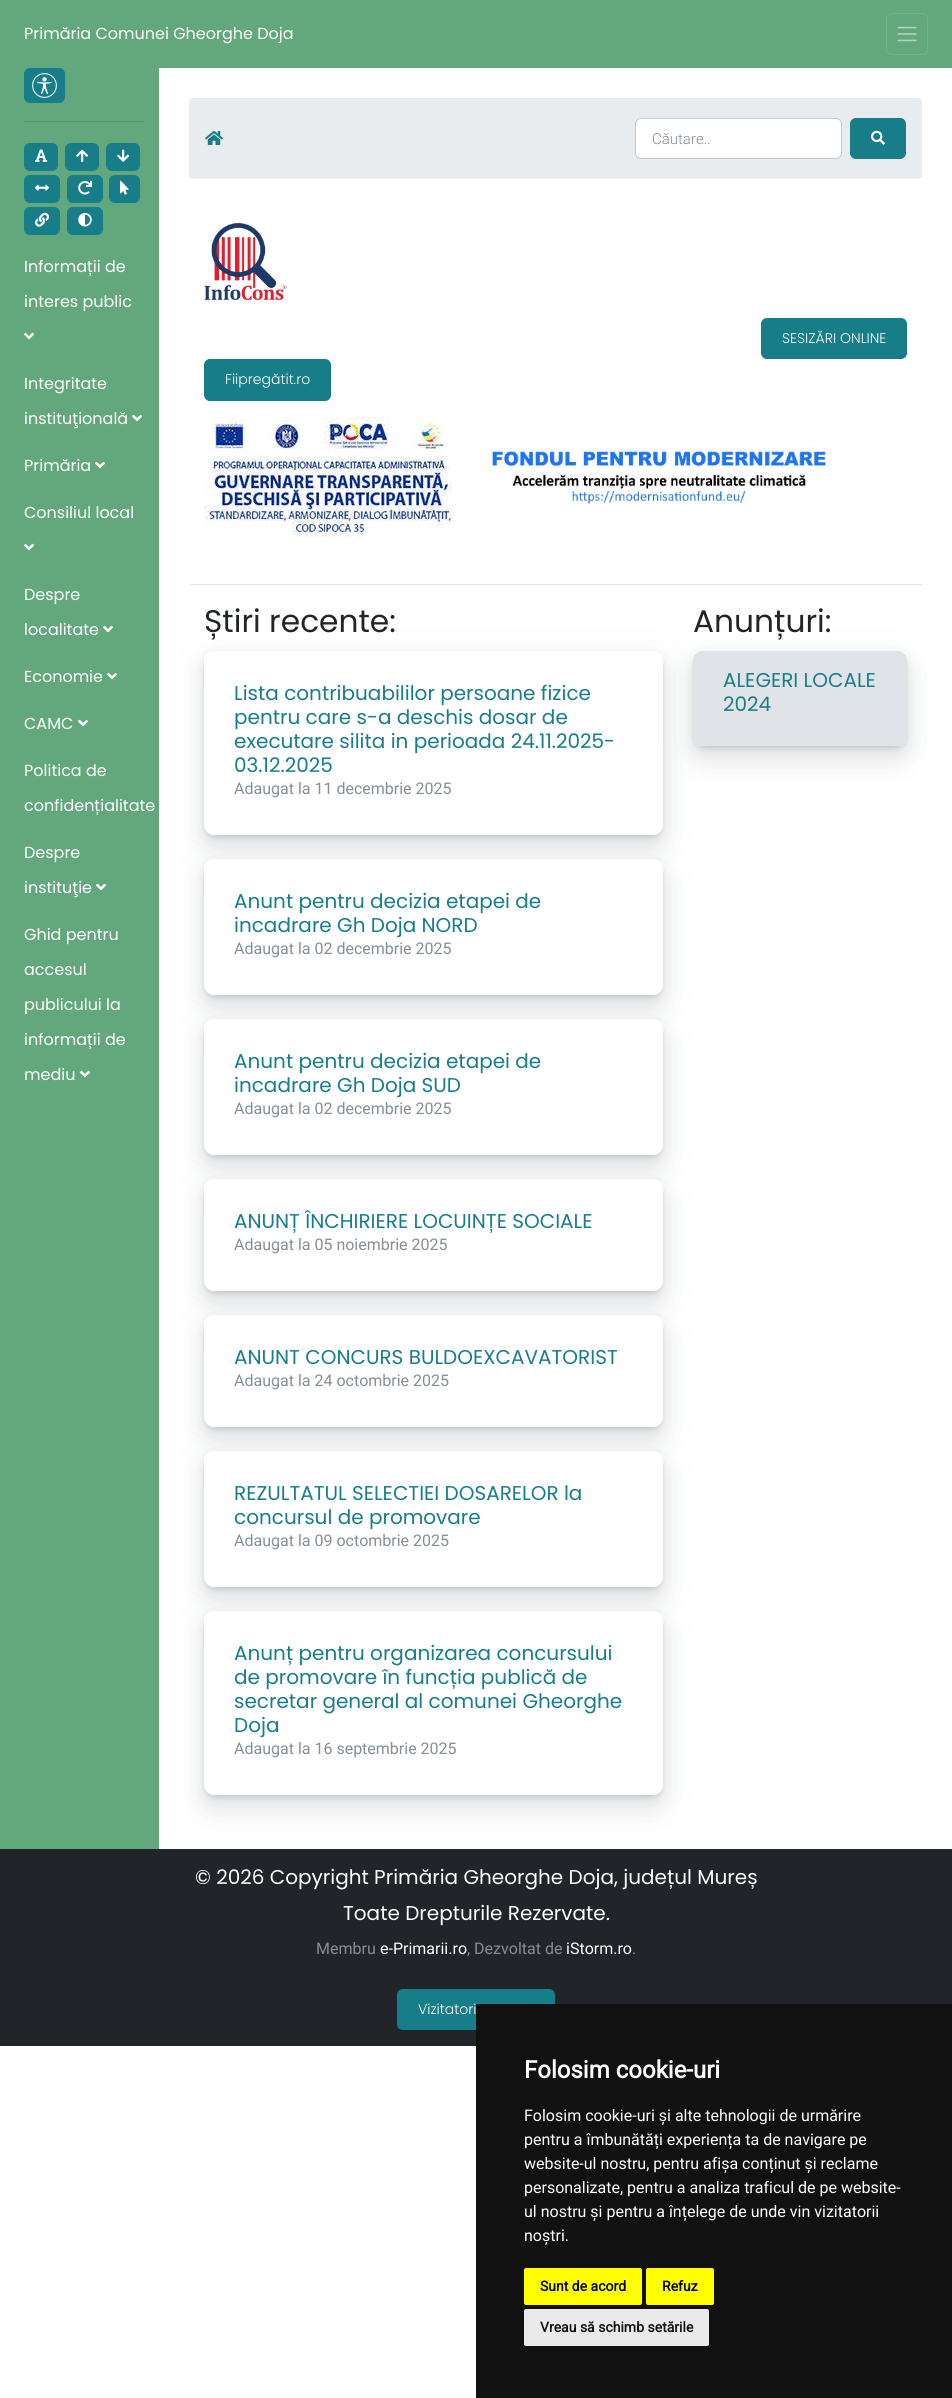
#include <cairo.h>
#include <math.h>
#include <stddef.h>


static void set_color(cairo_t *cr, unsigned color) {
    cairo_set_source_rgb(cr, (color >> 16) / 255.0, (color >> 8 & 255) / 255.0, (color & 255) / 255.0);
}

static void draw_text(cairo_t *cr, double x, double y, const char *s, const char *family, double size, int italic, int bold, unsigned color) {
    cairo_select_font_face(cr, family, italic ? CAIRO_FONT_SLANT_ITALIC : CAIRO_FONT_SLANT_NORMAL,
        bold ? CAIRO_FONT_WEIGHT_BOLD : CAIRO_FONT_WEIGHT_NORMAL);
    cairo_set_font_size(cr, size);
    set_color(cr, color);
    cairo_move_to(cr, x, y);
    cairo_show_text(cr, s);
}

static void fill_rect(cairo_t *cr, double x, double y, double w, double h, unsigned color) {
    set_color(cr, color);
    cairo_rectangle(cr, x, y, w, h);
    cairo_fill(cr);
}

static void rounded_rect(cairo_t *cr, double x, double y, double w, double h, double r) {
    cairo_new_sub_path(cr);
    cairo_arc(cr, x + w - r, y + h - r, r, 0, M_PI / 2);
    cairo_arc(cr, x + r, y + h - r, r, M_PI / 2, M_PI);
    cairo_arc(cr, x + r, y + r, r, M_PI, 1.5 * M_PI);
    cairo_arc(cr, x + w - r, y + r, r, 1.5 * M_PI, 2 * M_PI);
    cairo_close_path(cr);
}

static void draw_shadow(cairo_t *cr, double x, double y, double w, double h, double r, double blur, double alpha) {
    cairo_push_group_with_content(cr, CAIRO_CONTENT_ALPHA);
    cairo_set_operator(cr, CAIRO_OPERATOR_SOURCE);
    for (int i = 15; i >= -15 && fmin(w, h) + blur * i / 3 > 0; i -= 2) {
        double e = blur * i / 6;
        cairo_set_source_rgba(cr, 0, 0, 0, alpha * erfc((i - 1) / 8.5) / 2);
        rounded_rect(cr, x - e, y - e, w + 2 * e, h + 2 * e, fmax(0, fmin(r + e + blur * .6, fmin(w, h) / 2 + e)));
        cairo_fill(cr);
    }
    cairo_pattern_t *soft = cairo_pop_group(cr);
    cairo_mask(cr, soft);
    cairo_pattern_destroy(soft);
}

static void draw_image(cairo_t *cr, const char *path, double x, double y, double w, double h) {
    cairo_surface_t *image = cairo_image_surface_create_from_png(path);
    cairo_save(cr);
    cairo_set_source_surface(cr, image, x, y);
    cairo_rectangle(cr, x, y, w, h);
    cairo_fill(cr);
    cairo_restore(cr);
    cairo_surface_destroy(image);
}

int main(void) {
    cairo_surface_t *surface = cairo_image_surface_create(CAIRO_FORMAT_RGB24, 952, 2398);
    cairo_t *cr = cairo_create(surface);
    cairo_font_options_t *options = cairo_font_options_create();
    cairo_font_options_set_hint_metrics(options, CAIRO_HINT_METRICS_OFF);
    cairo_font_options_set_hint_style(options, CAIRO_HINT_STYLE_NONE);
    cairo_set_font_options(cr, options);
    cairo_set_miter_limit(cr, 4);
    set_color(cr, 0xFFFFFF);
    cairo_paint(cr);
    fill_rect(cr, 0, 0, 952, 68, 0x62A87C);
    draw_text(cr, 24, 39, "Primăria Comunei Gheorghe Doja", "Poppins", 16, 0, 0, 0xFFFFFF);
    rounded_rect(cr, 886.5, 13.5, 41, 41, 5.5);
    set_color(cr, 0x72B189);
    cairo_set_line_width(cr, 1);
    cairo_stroke(cr);
    draw_image(cr, "assets/img1.png", 897, 26, 20, 16);
    fill_rect(cr, 0, 68, 159, 1781, 0x62A87C);
    set_color(cr, 0x177E89);
    rounded_rect(cr, 24.5, 68.5, 40, 34, 5.5);
    cairo_fill_preserve(cr);
    cairo_stroke(cr);
    draw_image(cr, "assets/img2.png", 32, 73, 25, 25);
    fill_rect(cr, 24, 121, 120, 1, 0x589770);
    set_color(cr, 0x177E89);
    rounded_rect(cr, 24.5, 143.5, 33, 27, 5.5);
    cairo_fill_preserve(cr);
    cairo_stroke(cr);
    draw_image(cr, "assets/img3.png", 35, 149, 13, 13);
    rounded_rect(cr, 65.5, 143.5, 33, 27, 5.5);
    cairo_fill_preserve(cr);
    cairo_stroke(cr);
    draw_image(cr, "assets/img4.png", 76, 149, 12, 13);
    rounded_rect(cr, 106.5, 143.5, 33, 27, 5.5);
    cairo_fill_preserve(cr);
    cairo_stroke(cr);
    draw_image(cr, "assets/img5.png", 117, 149, 12, 13);
    rounded_rect(cr, 24.5, 175.5, 35, 27, 5.5);
    cairo_fill_preserve(cr);
    cairo_stroke(cr);
    draw_image(cr, "assets/img6.png", 35, 184, 14, 7);
    rounded_rect(cr, 67.5, 175.5, 35, 27, 5.5);
    cairo_fill_preserve(cr);
    cairo_stroke(cr);
    draw_image(cr, "assets/img7.png", 78, 180, 14, 15);
    rounded_rect(cr, 109.5, 175.5, 30, 27, 5.5);
    cairo_fill_preserve(cr);
    cairo_stroke(cr);
    draw_image(cr, "assets/img8.png", 120, 180, 9, 15);
    rounded_rect(cr, 24.5, 207.5, 35, 27, 5.5);
    cairo_fill_preserve(cr);
    cairo_stroke(cr);
    draw_image(cr, "assets/img9.png", 35, 212, 14, 15);
    rounded_rect(cr, 67.5, 207.5, 35, 27, 5.5);
    cairo_fill_preserve(cr);
    cairo_stroke(cr);
    draw_image(cr, "assets/img10.png", 78, 213, 14, 14);
    draw_text(cr, 24, 272, "Informații de", "Poppins", 16, 0, 0, 0xFFFFFF);
    draw_text(cr, 24, 307, "interes public", "Poppins", 16, 0, 0, 0xFFFFFF);
    draw_image(cr, "assets/img11.png", 24, 332, 10, 8);
    draw_text(cr, 24, 389, "Integritate", "Poppins", 16, 0, 0, 0xFFFFFF);
    draw_text(cr, 24, 424, "instituţională", "Poppins", 16, 0, 0, 0xFFFFFF);
    draw_image(cr, "assets/img11.png", 132, 414, 10, 8);
    draw_text(cr, 24, 471, "Primăria", "Poppins", 16, 0, 0, 0xFFFFFF);
    draw_image(cr, "assets/img11.png", 95, 461, 10, 8);
    draw_text(cr, 24, 518, "Consiliul local", "Poppins", 16, 0, 0, 0xFFFFFF);
    draw_image(cr, "assets/img11.png", 24, 543, 10, 8);
    draw_text(cr, 24, 600, "Despre", "Poppins", 16, 0, 0, 0xFFFFFF);
    draw_text(cr, 24, 635, "localitate", "Poppins", 16, 0, 0, 0xFFFFFF);
    draw_image(cr, "assets/img11.png", 103, 625, 10, 8);
    draw_text(cr, 24, 682, "Economie", "Poppins", 16, 0, 0, 0xFFFFFF);
    draw_image(cr, "assets/img11.png", 107, 672, 10, 8);
    draw_text(cr, 24, 729, "CAMC", "Poppins", 16, 0, 0, 0xFFFFFF);
    draw_image(cr, "assets/img11.png", 78, 719, 10, 8);
    draw_text(cr, 24, 776, "Politica de", "Poppins", 16, 0, 0, 0xFFFFFF);
    draw_text(cr, 24, 811, "confidențialitate", "Poppins", 16, 0, 0, 0xFFFFFF);
    draw_text(cr, 24, 858, "Despre", "Poppins", 16, 0, 0, 0xFFFFFF);
    draw_text(cr, 24, 893, "instituţie", "Poppins", 16, 0, 0, 0xFFFFFF);
    draw_image(cr, "assets/img11.png", 96, 883, 10, 8);
    draw_text(cr, 24, 940, "Ghid pentru", "Poppins", 16, 0, 0, 0xFFFFFF);
    draw_text(cr, 24, 975, "accesul", "Poppins", 16, 0, 0, 0xFFFFFF);
    draw_text(cr, 24, 1010, "publicului la", "Poppins", 16, 0, 0, 0xFFFFFF);
    draw_text(cr, 24, 1045, "informații de", "Poppins", 16, 0, 0, 0xFFFFFF);
    draw_text(cr, 24, 1080, "mediu", "Poppins", 16, 0, 0, 0xFFFFFF);
    draw_image(cr, "assets/img11.png", 80, 1070, 10, 8);
    set_color(cr, 0xE9ECEF);
    rounded_rect(cr, 189, 98, 733, 81, 4);
    cairo_fill(cr);
    draw_image(cr, "assets/img12.png", 205, 131, 18, 14);
    set_color(cr, 0xFFFFFF);
    rounded_rect(cr, 635.5, 118.5, 206, 40, 5.5);
    cairo_fill_preserve(cr);
    set_color(cr, 0xBECAD6);
    cairo_stroke(cr);
    draw_text(cr, 652, 144, "Căutare..", "Roboto Light", 15, 0, 0, 0x868E96);
    set_color(cr, 0x177E89);
    rounded_rect(cr, 850.5, 118.5, 55, 40, 5.5);
    cairo_fill_preserve(cr);
    cairo_stroke(cr);
    draw_image(cr, "assets/img13.png", 871, 130, 14, 15);
    draw_image(cr, "assets/img14.png", 204, 222, 83, 78);
    rounded_rect(cr, 761.5, 318.5, 145, 40, 5.5);
    cairo_fill_preserve(cr);
    cairo_stroke(cr);
    draw_text(cr, 782, 343, "SESIZĂRI ONLINE", "Poppins Light", 14, 0, 0, 0xFFFFFF);
    set_color(cr, 0x177E89);
    rounded_rect(cr, 204.5, 359.5, 126, 41, 5.5);
    cairo_fill_preserve(cr);
    cairo_stroke(cr);
    draw_text(cr, 225, 384, "Fiipregătit.ro", "Poppins Light", 14, 0, 0, 0xFFFFFF);
    draw_image(cr, "assets/img15.png", 204, 417, 250, 120);
    draw_image(cr, "assets/img16.png", 488, 446, 342, 60);
    fill_rect(cr, 189, 584, 733, 1, 0xE6E6E6);
    draw_text(cr, 204, 632, "Știri recente:", "Poppins", 31.25, 0, 0, 0x212529);
    set_color(cr, 0x5A6169);
    draw_shadow(cr, 204, 653, 459, 184, 10, 1.5, 0.1);
    draw_shadow(cr, 204, 655, 459, 184, 10, 4, 0.12);
    draw_shadow(cr, 204, 666, 459, 184, 10, 11, 0.1);
    draw_shadow(cr, 204, 659, 459, 184, 10, 17.5, 0.1);
    set_color(cr, 0xFFFFFF);
    rounded_rect(cr, 204, 651, 459, 184, 10);
    cairo_fill(cr);
    draw_text(cr, 234, 700, "Lista contribuabililor persoane fizice", "Poppins", 20, 0, 0, 0x177E89);
    draw_text(cr, 234, 724, "pentru care s-a deschis dosar de", "Poppins", 20, 0, 0, 0x177E89);
    draw_text(cr, 234, 748, "executare silita in perioada 24.11.2025-", "Poppins", 20, 0, 0, 0x177E89);
    draw_text(cr, 234, 772, "03.12.2025", "Poppins", 20, 0, 0, 0x177E89);
    draw_text(cr, 234, 794, "Adaugat la 11 decembrie 2025", "Roboto", 16, 0, 0, 0x868E96);
    set_color(cr, 0x5A6169);
    draw_shadow(cr, 204, 861, 459, 136, 10, 1.5, 0.1);
    draw_shadow(cr, 204, 863, 459, 136, 10, 4, 0.12);
    draw_shadow(cr, 204, 874, 459, 136, 10, 11, 0.1);
    draw_shadow(cr, 204, 867, 459, 136, 10, 17.5, 0.1);
    set_color(cr, 0xFFFFFF);
    rounded_rect(cr, 204, 859, 459, 136, 10);
    cairo_fill(cr);
    draw_text(cr, 234, 908, "Anunt pentru decizia etapei de", "Poppins", 20, 0, 0, 0x177E89);
    draw_text(cr, 234, 932, "incadrare Gh Doja NORD", "Poppins", 20, 0, 0, 0x177E89);
    draw_text(cr, 234, 954, "Adaugat la 02 decembrie 2025", "Roboto", 16, 0, 0, 0x868E96);
    set_color(cr, 0x5A6169);
    draw_shadow(cr, 204, 1021, 459, 136, 10, 1.5, 0.1);
    draw_shadow(cr, 204, 1023, 459, 136, 10, 4, 0.12);
    draw_shadow(cr, 204, 1034, 459, 136, 10, 11, 0.1);
    draw_shadow(cr, 204, 1027, 459, 136, 10, 17.5, 0.1);
    set_color(cr, 0xFFFFFF);
    rounded_rect(cr, 204, 1019, 459, 136, 10);
    cairo_fill(cr);
    draw_text(cr, 234, 1068, "Anunt pentru decizia etapei de", "Poppins", 20, 0, 0, 0x177E89);
    draw_text(cr, 234, 1092, "incadrare Gh Doja SUD", "Poppins", 20, 0, 0, 0x177E89);
    draw_text(cr, 234, 1114, "Adaugat la 02 decembrie 2025", "Roboto", 16, 0, 0, 0x868E96);
    set_color(cr, 0x5A6169);
    draw_shadow(cr, 204, 1181, 459, 112, 10, 1.5, 0.1);
    draw_shadow(cr, 204, 1183, 459, 112, 10, 4, 0.12);
    draw_shadow(cr, 204, 1194, 459, 112, 10, 11, 0.1);
    draw_shadow(cr, 204, 1187, 459, 112, 10, 17.5, 0.1);
    set_color(cr, 0xFFFFFF);
    rounded_rect(cr, 204, 1179, 459, 112, 10);
    cairo_fill(cr);
    draw_text(cr, 234, 1228, "ANUNȚ ÎNCHIRIERE LOCUINȚE SOCIALE", "Poppins", 20, 0, 0, 0x177E89);
    draw_text(cr, 234, 1250, "Adaugat la 05 noiembrie 2025", "Roboto", 16, 0, 0, 0x868E96);
    set_color(cr, 0x5A6169);
    draw_shadow(cr, 204, 1317, 459, 112, 10, 1.5, 0.1);
    draw_shadow(cr, 204, 1319, 459, 112, 10, 4, 0.12);
    draw_shadow(cr, 204, 1330, 459, 112, 10, 11, 0.1);
    draw_shadow(cr, 204, 1323, 459, 112, 10, 17.5, 0.1);
    set_color(cr, 0xFFFFFF);
    rounded_rect(cr, 204, 1315, 459, 112, 10);
    cairo_fill(cr);
    draw_text(cr, 234, 1364, "ANUNT CONCURS BULDOEXCAVATORIST", "Poppins", 20, 0, 0, 0x177E89);
    draw_text(cr, 234, 1386, "Adaugat la 24 octombrie 2025", "Roboto", 16, 0, 0, 0x868E96);
    set_color(cr, 0x5A6169);
    draw_shadow(cr, 204, 1453, 459, 136, 10, 1.5, 0.1);
    draw_shadow(cr, 204, 1455, 459, 136, 10, 4, 0.12);
    draw_shadow(cr, 204, 1466, 459, 136, 10, 11, 0.1);
    draw_shadow(cr, 204, 1459, 459, 136, 10, 17.5, 0.1);
    set_color(cr, 0xFFFFFF);
    rounded_rect(cr, 204, 1451, 459, 136, 10);
    cairo_fill(cr);
    draw_text(cr, 234, 1500, "REZULTATUL SELECTIEI DOSARELOR la", "Poppins", 20, 0, 0, 0x177E89);
    draw_text(cr, 234, 1524, "concursul de promovare", "Poppins", 20, 0, 0, 0x177E89);
    draw_text(cr, 234, 1546, "Adaugat la 09 octombrie 2025", "Roboto", 16, 0, 0, 0x868E96);
    set_color(cr, 0x5A6169);
    draw_shadow(cr, 204, 1613, 459, 184, 10, 1.5, 0.1);
    draw_shadow(cr, 204, 1615, 459, 184, 10, 4, 0.12);
    draw_shadow(cr, 204, 1626, 459, 184, 10, 11, 0.1);
    fill_rect(cr, 0, 1849, 952, 197, 0x212529);
    set_color(cr, 0x5A6169);
    draw_shadow(cr, 204, 1619, 459, 184, 10, 17.5, 0.1);
    set_color(cr, 0xFFFFFF);
    rounded_rect(cr, 204, 1611, 459, 184, 10);
    cairo_fill(cr);
    draw_text(cr, 234, 1660, "Anunț pentru organizarea concursului", "Poppins", 20, 0, 0, 0x177E89);
    draw_text(cr, 234, 1684, "de promovare în funcția publică de", "Poppins", 20, 0, 0, 0x177E89);
    draw_text(cr, 234, 1708, "secretar general al comunei Gheorghe", "Poppins", 20, 0, 0, 0x177E89);
    draw_text(cr, 234, 1732, "Doja", "Poppins", 20, 0, 0, 0x177E89);
    draw_text(cr, 234, 1754, "Adaugat la 16 septembrie 2025", "Roboto", 16, 0, 0, 0x868E96);
    draw_text(cr, 693, 632, "Anunțuri:", "Poppins", 31.25, 0, 0, 0x212529);
    set_color(cr, 0x5A6169);
    draw_shadow(cr, 693, 653, 214, 95, 10, 1.5, 0.1);
    draw_shadow(cr, 693, 655, 214, 95, 10, 4, 0.12);
    draw_shadow(cr, 693, 666, 214, 95, 10, 11, 0.1);
    draw_shadow(cr, 693, 659, 214, 95, 10, 17.5, 0.1);
    set_color(cr, 0xE0E4E9);
    cairo_new_path(cr);
    cairo_move_to(cr, 703, 651);
    cairo_line_to(cr, 897, 651);
    cairo_curve_to(cr, 902.5, 651, 907, 655.5, 907, 661);
    cairo_line_to(cr, 907, 746);
    cairo_line_to(cr, 693, 746);
    cairo_line_to(cr, 693, 661);
    cairo_curve_to(cr, 693, 655.5, 697.5, 651, 703, 651);
    cairo_close_path(cr);
    cairo_fill(cr);
    draw_text(cr, 723, 687, "ALEGERI LOCALE", "Poppins", 20, 0, 0, 0x177E89);
    draw_text(cr, 723, 711, "2024", "Poppins", 20, 0, 0, 0x177E89);
    draw_text(cr, 195, 1884, "© 2026 Copyright Primăria Gheorghe Doja, județul Mureș", "Poppins", 20, 0, 0, 0xFFFFFF);
    draw_text(cr, 343, 1920, "Toate Drepturile Rezervate.", "Poppins", 20, 0, 0, 0xFFFFFF);
    draw_text(cr, 316, 1954, "Membru", "Roboto", 16, 0, 0, 0x868E96);
    draw_text(cr, 380, 1954, "e-Primarii.ro", "Roboto", 16, 0, 0, 0xFFFFFF);
    draw_text(cr, 467, 1954, ", Dezvoltat de", "Roboto", 16, 0, 0, 0x868E96);
    draw_text(cr, 566, 1954, "iStorm.ro", "Roboto", 16, 0, 0, 0xFFFFFF);
    draw_text(cr, 632, 1954, ".", "Roboto", 16, 0, 0, 0x868E96);
    set_color(cr, 0x177E89);
    rounded_rect(cr, 397.5, 1989.5, 157, 40, 5.5);
    cairo_fill_preserve(cr);
    cairo_stroke(cr);
    draw_text(cr, 418, 2014, "Vizitatori", "Poppins Light", 14, 0, 0, 0xFFFFFF);
    fill_rect(cr, 476, 2004, 476, 394, 0x111111);
    draw_text(cr, 524, 2078, "Folosim cookie-uri", "Roboto", 24, 0, 1, 0xFFFFFF);
    draw_text(cr, 524, 2121, "Folosim cookie-uri și alte tehnologii de urmărire", "Roboto", 16, 0, 0, 0xFFFFFF);
    draw_text(cr, 524, 2145, "pentru a îmbunătăți experiența ta de navigare pe", "Roboto", 16, 0, 0, 0xFFFFFF);
    draw_text(cr, 524, 2169, "website-ul nostru, pentru afișa conținut și reclame", "Roboto", 16, 0, 0, 0xFFFFFF);
    draw_text(cr, 524, 2193, "personalizate, pentru a analiza traficul de pe website-", "Roboto", 16, 0, 0, 0xFFFFFF);
    draw_text(cr, 524, 2217, "ul nostru și pentru a înțelege de unde vin vizitatorii", "Roboto", 16, 0, 0, 0xFFFFFF);
    draw_text(cr, 524, 2241, "noștri.", "Roboto", 16, 0, 0, 0xFFFFFF);
    set_color(cr, 0xFFFF00);
    rounded_rect(cr, 524, 2268, 118, 37, 2);
    cairo_fill(cr);
    draw_text(cr, 540, 2291, "Sunt de acord", "Roboto", 14, 0, 1, 0x000000);
    set_color(cr, 0xFFFF00);
    rounded_rect(cr, 646, 2268, 68, 37, 2);
    cairo_fill(cr);
    draw_text(cr, 662, 2291, "Refuz", "Roboto", 14, 0, 1, 0x000000);
    set_color(cr, 0xEAEAEA);
    rounded_rect(cr, 524, 2309, 185, 37, 2);
    cairo_fill(cr);
    draw_text(cr, 540, 2332, "Vreau să schimb setările", "Roboto", 14, 0, 1, 0x111111);
    cairo_surface_write_to_png(surface, "output.png");
    cairo_font_options_destroy(options);
    cairo_destroy(cr);
    cairo_surface_destroy(surface);
    return 0;
}
